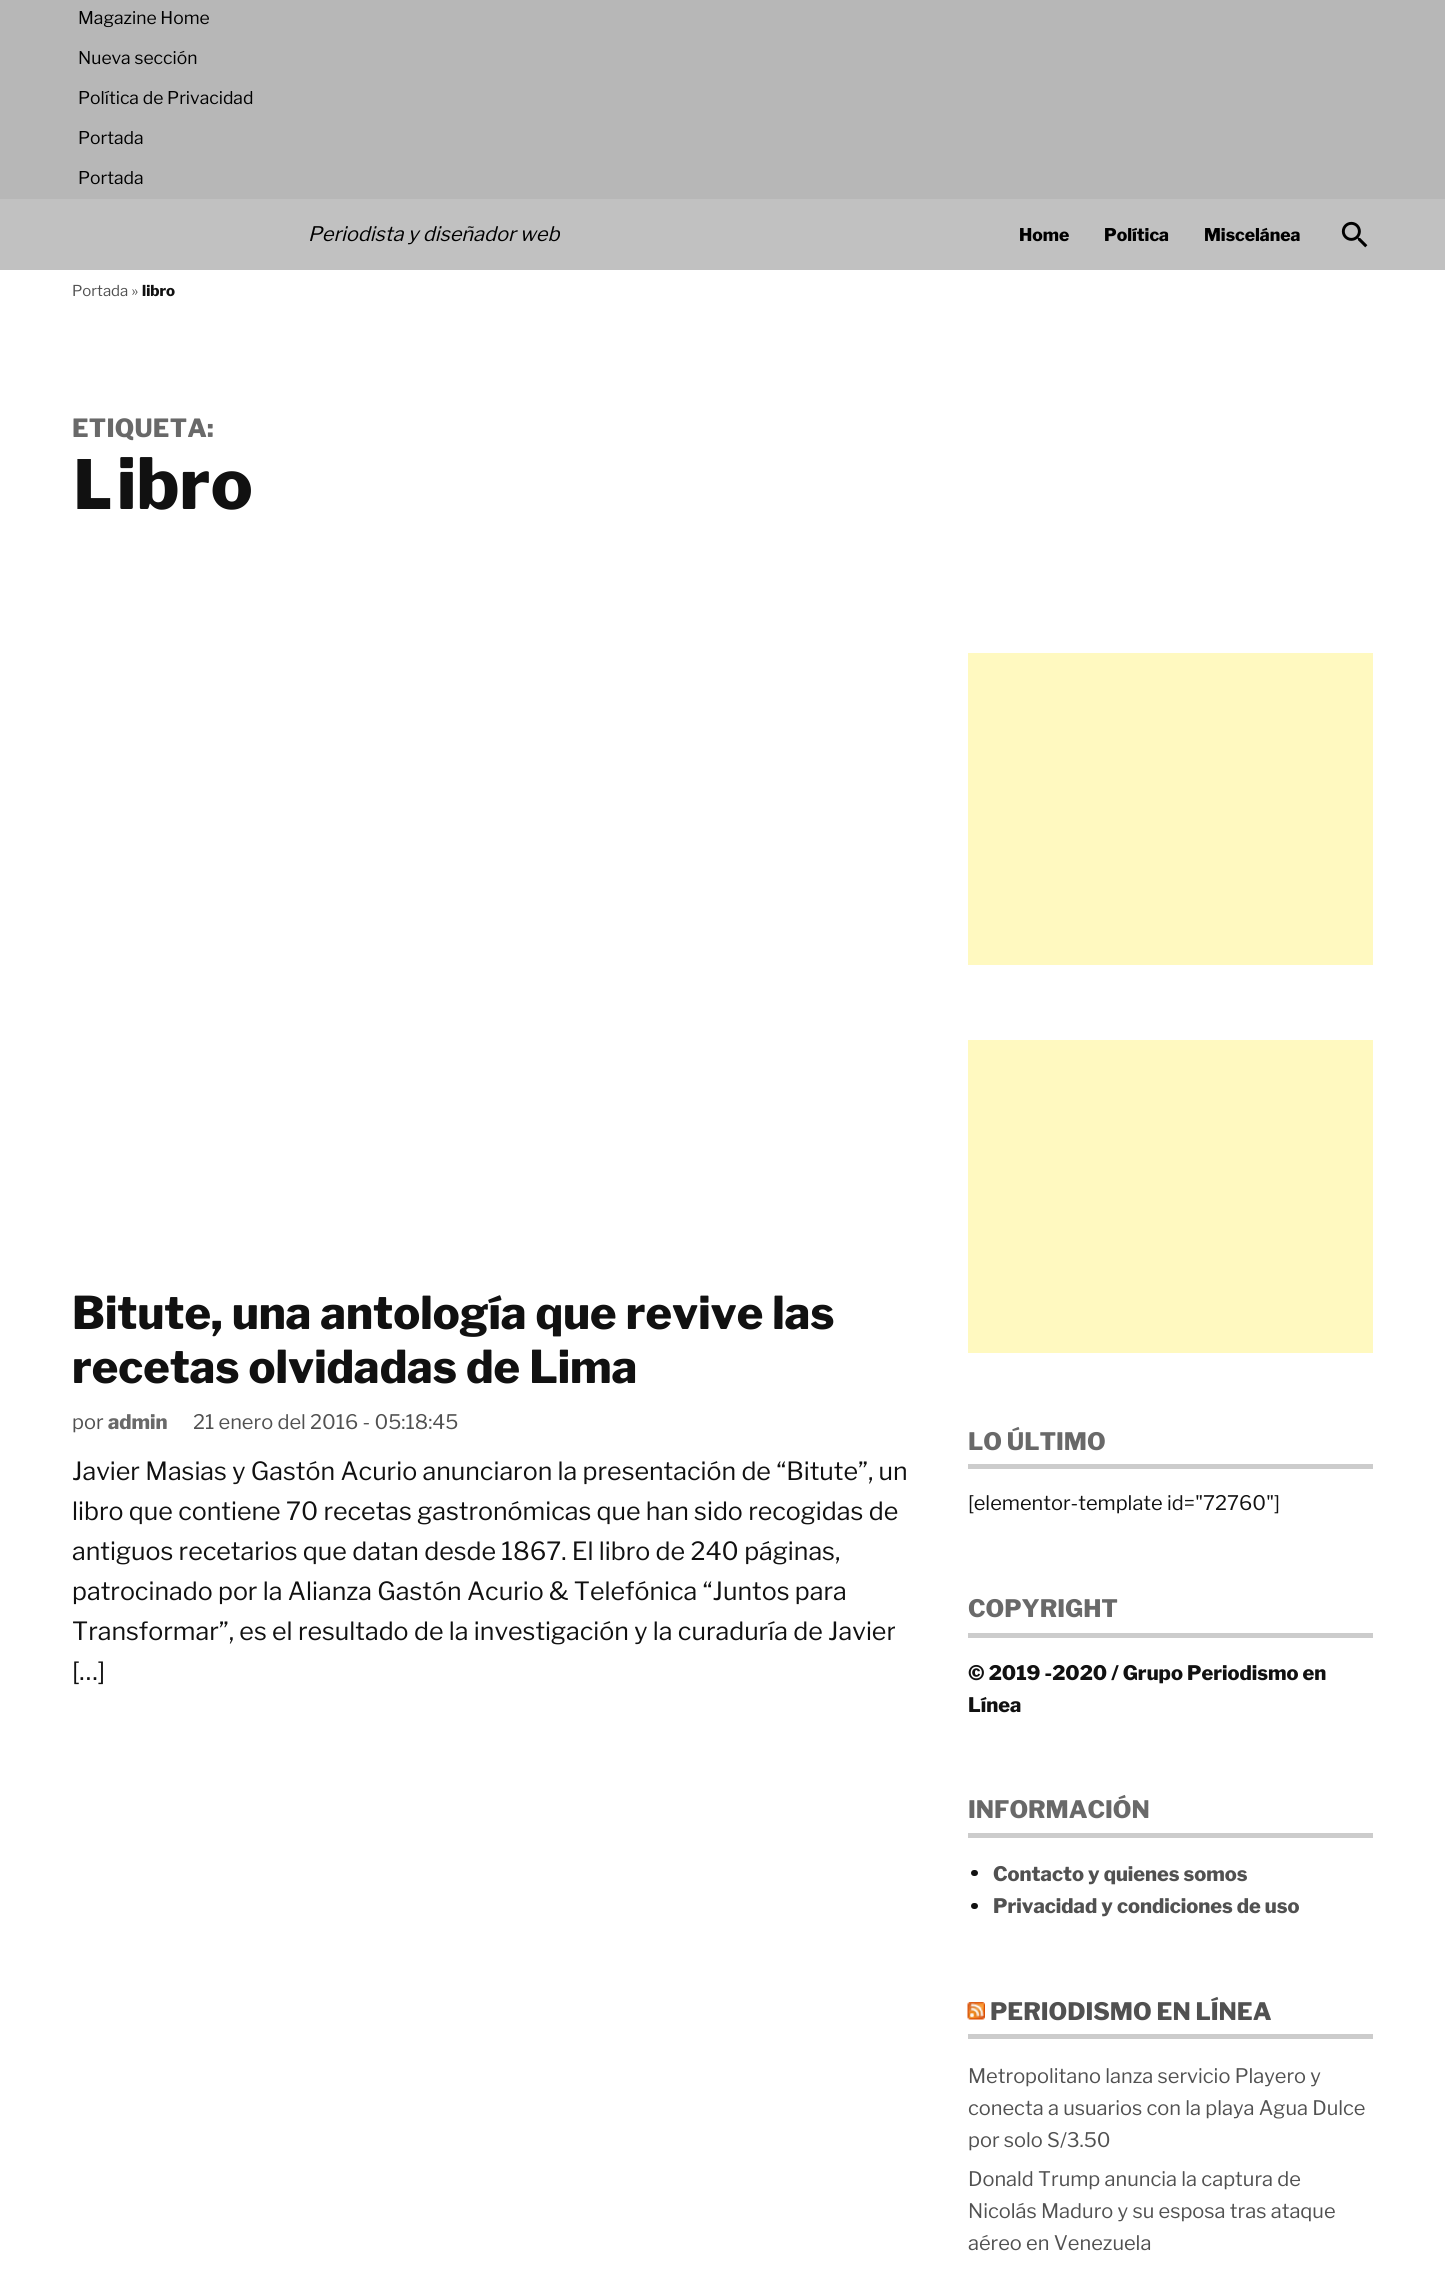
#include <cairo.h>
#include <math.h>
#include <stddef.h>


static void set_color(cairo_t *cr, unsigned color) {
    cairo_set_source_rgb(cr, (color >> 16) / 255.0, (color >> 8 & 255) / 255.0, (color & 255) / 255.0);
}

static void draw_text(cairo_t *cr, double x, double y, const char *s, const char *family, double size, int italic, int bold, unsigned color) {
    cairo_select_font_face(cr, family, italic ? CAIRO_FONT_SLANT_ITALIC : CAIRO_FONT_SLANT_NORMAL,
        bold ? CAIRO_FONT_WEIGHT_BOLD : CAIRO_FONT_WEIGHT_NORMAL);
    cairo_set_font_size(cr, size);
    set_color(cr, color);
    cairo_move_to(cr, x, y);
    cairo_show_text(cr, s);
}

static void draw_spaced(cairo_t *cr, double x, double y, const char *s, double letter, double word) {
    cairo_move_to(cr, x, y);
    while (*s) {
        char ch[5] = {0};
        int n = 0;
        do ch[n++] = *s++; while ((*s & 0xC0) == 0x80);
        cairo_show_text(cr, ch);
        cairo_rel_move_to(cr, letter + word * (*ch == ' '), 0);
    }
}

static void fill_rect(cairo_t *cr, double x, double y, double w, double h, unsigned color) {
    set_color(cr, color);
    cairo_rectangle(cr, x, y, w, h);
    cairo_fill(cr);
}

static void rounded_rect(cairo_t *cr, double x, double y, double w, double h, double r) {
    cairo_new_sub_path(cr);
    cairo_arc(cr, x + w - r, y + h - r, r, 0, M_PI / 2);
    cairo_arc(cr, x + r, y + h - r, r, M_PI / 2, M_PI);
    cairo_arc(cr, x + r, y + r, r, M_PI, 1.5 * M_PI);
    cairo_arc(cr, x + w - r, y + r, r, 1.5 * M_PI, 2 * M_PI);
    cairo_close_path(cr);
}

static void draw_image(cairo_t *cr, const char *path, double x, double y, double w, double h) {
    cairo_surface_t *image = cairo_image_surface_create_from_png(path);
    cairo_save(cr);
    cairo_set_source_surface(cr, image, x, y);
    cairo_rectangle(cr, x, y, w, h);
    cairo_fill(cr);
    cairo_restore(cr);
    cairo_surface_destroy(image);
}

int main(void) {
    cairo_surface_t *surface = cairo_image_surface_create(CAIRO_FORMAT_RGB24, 1445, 2280);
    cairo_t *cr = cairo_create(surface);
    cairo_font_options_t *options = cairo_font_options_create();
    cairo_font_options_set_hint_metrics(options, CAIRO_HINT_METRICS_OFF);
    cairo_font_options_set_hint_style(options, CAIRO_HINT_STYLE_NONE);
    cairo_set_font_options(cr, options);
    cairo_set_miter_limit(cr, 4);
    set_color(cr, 0xFFFFFF);
    cairo_paint(cr);
    fill_rect(cr, 0, 0, 1445, 199, 0xB7B7B7);
    draw_text(cr, 78, 24, "Magazine Home", "Libre Franklin", 17.5, 0, 0, 0x000000);
    draw_text(cr, 78, 64, "Nueva sección", "Libre Franklin", 17.5, 0, 0, 0x000000);
    draw_text(cr, 78, 104, "Política de Privacidad", "Libre Franklin", 17.5, 0, 0, 0x000000);
    draw_text(cr, 78, 144, "Portada", "Libre Franklin", 17.5, 0, 0, 0x000000);
    draw_text(cr, 78, 184, "Portada", "Libre Franklin", 17.5, 0, 0, 0x000000);
    fill_rect(cr, 0, 199, 1445, 71, 0xC1C1C1);
    draw_text(cr, 308, 241, "Periodista y diseñador web", "Libre Franklin", 20, 1, 0, 0x000000);
    draw_text(cr, 1019, 241, "Home", "Libre Franklin ExtraBold", 17.5, 0, 0, 0x000000);
    draw_text(cr, 1104, 241, "Política", "Libre Franklin ExtraBold", 17.5, 0, 0, 0x000000);
    draw_text(cr, 1204, 241, "Miscelánea", "Libre Franklin ExtraBold", 17.5, 0, 0, 0x000000);
    draw_image(cr, "assets/img1.png", 1341, 221, 27, 27);
    draw_text(cr, 72, 296, "Portada »", "Libre Franklin", 15, 0, 0, 0x515151);
    draw_text(cr, 142, 296, "libro", "Libre Franklin ExtraBold", 15, 0, 0, 0x111111);
    cairo_set_font_size(cr, 25);
    set_color(cr, 0x696969);
    draw_spaced(cr, 72, 437, "ETIQUETA:", 0.25, 0);
    cairo_select_font_face(cr, "Noto Sans Black", CAIRO_FONT_SLANT_NORMAL, CAIRO_FONT_WEIGHT_NORMAL);
    cairo_set_font_size(cr, 70);
    set_color(cr, 0x111111);
    draw_spaced(cr, 72, 509, "L", 0.25, 0);
    cairo_select_font_face(cr, "Libre Franklin ExtraBold", CAIRO_FONT_SLANT_NORMAL, CAIRO_FONT_WEIGHT_NORMAL);
    draw_spaced(cr, 117, 509, "ibro", 0.25, 0);
    draw_text(cr, 72, 1329, "Bitute, una antología que revive las", "Libre Franklin ExtraBold", 45, 0, 0, 0x111111);
    draw_text(cr, 72, 1383, "recetas olvidadas de Lima", "Libre Franklin ExtraBold", 45, 0, 0, 0x111111);
    draw_text(cr, 72, 1429, "por", "Libre Franklin", 20, 0, 0, 0x515151);
    draw_text(cr, 108, 1429, "admin", "Libre Franklin ExtraBold", 20, 0, 0, 0x696969);
    draw_text(cr, 193, 1429, "21 enero del 2016 - 05:18:45", "Libre Franklin", 20, 0, 0, 0x515151);
    draw_text(cr, 72, 1480, "Javier Masias y Gastón Acurio anunciaron la presentación de “Bitute”, un", "Libre Franklin", 25, 0, 0, 0x111111);
    draw_text(cr, 72, 1520, "libro que contiene 70 recetas gastronómicas que han sido recogidas de", "Libre Franklin", 25, 0, 0, 0x111111);
    draw_text(cr, 72, 1560, "antiguos recetarios que datan desde 1867. El libro de 240 páginas,", "Libre Franklin", 25, 0, 0, 0x111111);
    draw_text(cr, 72, 1600, "patrocinado por la Alianza Gastón Acurio & Telefónica “Juntos para", "Libre Franklin", 25, 0, 0, 0x111111);
    draw_text(cr, 72, 1640, "Transformar”, es el resultado de la investigación y la curaduría de Javier", "Libre Franklin", 25, 0, 0, 0x111111);
    draw_text(cr, 72, 1680, "[…]", "Libre Franklin", 25, 0, 0, 0x111111);
    fill_rect(cr, 968, 653, 405, 312, 0xFFF9C0);
    fill_rect(cr, 968, 1040, 405, 313, 0xFFF9C0);
    fill_rect(cr, 968, 1464, 405, 5, 0xCCCCCC);
    draw_text(cr, 968, 1450, "LO ÚLTIMO", "Libre Franklin ExtraBold", 24, 0, 0, 0x696969);
    draw_text(cr, 968, 1510, "[elementor-template id=\"72760\"]", "Libre Franklin", 20, 0, 0, 0x111111);
    fill_rect(cr, 968, 1633, 405, 5, 0xCCCCCC);
    draw_text(cr, 968, 1617, "COPYRIGHT", "Libre Franklin ExtraBold", 24, 0, 0, 0x696969);
    draw_text(cr, 968, 1680, "© 2019 -2020 / Grupo Periodismo en", "Libre Franklin ExtraBold", 20, 0, 0, 0x111111);
    draw_text(cr, 968, 1712, "Línea", "Libre Franklin ExtraBold", 20, 0, 0, 0x111111);
    fill_rect(cr, 968, 1833, 405, 5, 0xCCCCCC);
    draw_text(cr, 968, 1818, "INFORMACIÓN", "Libre Franklin ExtraBold", 24, 0, 0, 0x696969);
    set_color(cr, 0x111111);
    rounded_rect(cr, 971, 1870, 7, 6, 3);
    cairo_fill(cr);
    draw_text(cr, 993, 1881, "Contacto y quienes somos", "Libre Franklin ExtraBold", 20, 0, 0, 0x515151);
    set_color(cr, 0x111111);
    rounded_rect(cr, 971, 1903, 7, 6, 3);
    cairo_fill(cr);
    draw_text(cr, 993, 1913, "Privacidad y condiciones de uso", "Libre Franklin ExtraBold", 20, 0, 0, 0x515151);
    fill_rect(cr, 968, 2034, 405, 5, 0xCCCCCC);
    draw_image(cr, "assets/img2.png", 967, 2002, 18, 18);
    draw_text(cr, 990, 2020, "PERIODISMO EN LÍNEA", "Libre Franklin ExtraBold", 24, 0, 0, 0x515151);
    draw_text(cr, 968, 2083, "Metropolitano lanza servicio Playero y", "Libre Franklin", 20, 0, 0, 0x515151);
    draw_text(cr, 968, 2115, "conecta a usuarios con la playa Agua Dulce", "Libre Franklin", 20, 0, 0, 0x515151);
    draw_text(cr, 968, 2147, "por solo S/3.50", "Libre Franklin", 20, 0, 0, 0x515151);
    draw_text(cr, 968, 2186, "Donald Trump anuncia la captura de", "Libre Franklin", 20, 0, 0, 0x515151);
    draw_text(cr, 968, 2218, "Nicolás Maduro y su esposa tras ataque", "Libre Franklin", 20, 0, 0, 0x515151);
    draw_text(cr, 968, 2250, "aéreo en Venezuela", "Libre Franklin", 20, 0, 0, 0x515151);
    cairo_surface_write_to_png(surface, "output.png");
    cairo_font_options_destroy(options);
    cairo_destroy(cr);
    cairo_surface_destroy(surface);
    return 0;
}
